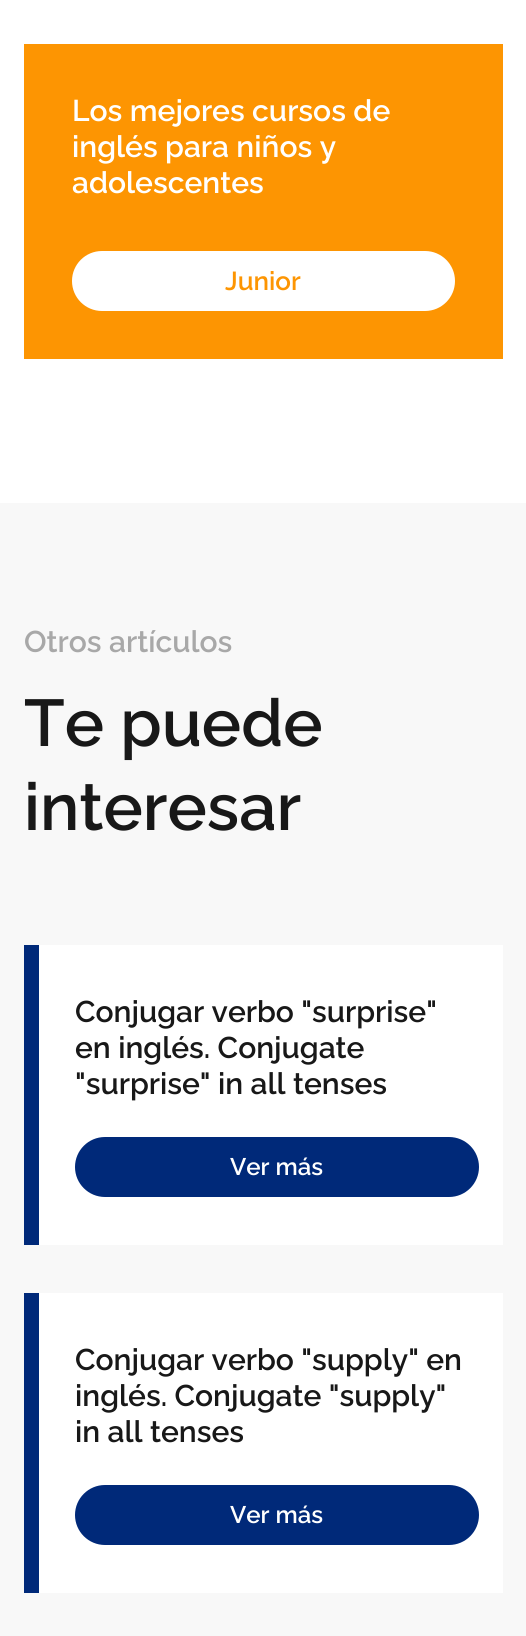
#include <cairo.h>
#include <math.h>
#include <stddef.h>


static void set_color(cairo_t *cr, unsigned color) {
    cairo_set_source_rgb(cr, (color >> 16) / 255.0, (color >> 8 & 255) / 255.0, (color & 255) / 255.0);
}

static void draw_text(cairo_t *cr, double x, double y, const char *s, const char *family, double size, int italic, int bold, unsigned color) {
    cairo_select_font_face(cr, family, italic ? CAIRO_FONT_SLANT_ITALIC : CAIRO_FONT_SLANT_NORMAL,
        bold ? CAIRO_FONT_WEIGHT_BOLD : CAIRO_FONT_WEIGHT_NORMAL);
    cairo_set_font_size(cr, size);
    set_color(cr, color);
    cairo_move_to(cr, x, y);
    cairo_show_text(cr, s);
}

static void fill_rect(cairo_t *cr, double x, double y, double w, double h, unsigned color) {
    set_color(cr, color);
    cairo_rectangle(cr, x, y, w, h);
    cairo_fill(cr);
}

static void rounded_rect(cairo_t *cr, double x, double y, double w, double h, double r) {
    cairo_new_sub_path(cr);
    cairo_arc(cr, x + w - r, y + h - r, r, 0, M_PI / 2);
    cairo_arc(cr, x + r, y + h - r, r, M_PI / 2, M_PI);
    cairo_arc(cr, x + r, y + r, r, M_PI, 1.5 * M_PI);
    cairo_arc(cr, x + w - r, y + r, r, 1.5 * M_PI, 2 * M_PI);
    cairo_close_path(cr);
}

int main(void) {
    cairo_surface_t *surface = cairo_image_surface_create(CAIRO_FORMAT_RGB24, 526, 1636);
    cairo_t *cr = cairo_create(surface);
    cairo_font_options_t *options = cairo_font_options_create();
    cairo_font_options_set_hint_metrics(options, CAIRO_HINT_METRICS_OFF);
    cairo_font_options_set_hint_style(options, CAIRO_HINT_STYLE_NONE);
    cairo_set_font_options(cr, options);
    cairo_set_miter_limit(cr, 4);
    set_color(cr, 0xFFFFFF);
    cairo_paint(cr);
    fill_rect(cr, 24, 44, 479, 315, 0xFD9502);
    draw_text(cr, 72, 121, "Los mejores cursos de", "Raleway SemiBold", 30, 0, 0, 0xFFFFFF);
    draw_text(cr, 72, 157, "inglés para niños y", "Raleway SemiBold", 30, 0, 0, 0xFFFFFF);
    draw_text(cr, 72, 193, "adolescentes", "Raleway SemiBold", 30, 0, 0, 0xFFFFFF);
    rounded_rect(cr, 72, 251, 383, 60, 30);
    cairo_fill(cr);
    draw_text(cr, 225, 290, "Junior", "Raleway SemiBold", 26, 0, 0, 0xFD9502);
    fill_rect(cr, 0, 503, 526, 1133, 0xF8F8F8);
    draw_text(cr, 24, 652, "Otros artículos", "Raleway SemiBold", 30, 0, 0, 0xA8A8A8);
    draw_text(cr, 24, 746, "Te puede", "Raleway SemiBold", 66, 0, 0, 0x181818);
    draw_text(cr, 24, 830, "interesar", "Raleway SemiBold", 66, 0, 0, 0x181818);
    fill_rect(cr, 39, 945, 464, 300, 0xFFFFFF);
    fill_rect(cr, 24, 945, 15, 300, 0x002979);
    draw_text(cr, 75, 1022, "Conjugar verbo \"surprise\"", "Raleway SemiBold", 30, 0, 0, 0x181818);
    draw_text(cr, 75, 1058, "en inglés. Conjugate", "Raleway SemiBold", 30, 0, 0, 0x181818);
    draw_text(cr, 75, 1094, "\"surprise\" in all tenses", "Raleway SemiBold", 30, 0, 0, 0x181818);
    set_color(cr, 0x002979);
    rounded_rect(cr, 75, 1137, 404, 60, 30);
    cairo_fill(cr);
    draw_text(cr, 230, 1175, "Ver más", "Raleway SemiBold", 24, 0, 0, 0xFFFFFF);
    fill_rect(cr, 39, 1293, 464, 300, 0xFFFFFF);
    fill_rect(cr, 24, 1293, 15, 300, 0x002979);
    draw_text(cr, 75, 1370, "Conjugar verbo \"supply\" en", "Raleway SemiBold", 30, 0, 0, 0x181818);
    draw_text(cr, 75, 1406, "inglés. Conjugate \"supply\"", "Raleway SemiBold", 30, 0, 0, 0x181818);
    draw_text(cr, 75, 1442, "in all tenses", "Raleway SemiBold", 30, 0, 0, 0x181818);
    set_color(cr, 0x002979);
    rounded_rect(cr, 75, 1485, 404, 60, 30);
    cairo_fill(cr);
    draw_text(cr, 230, 1523, "Ver más", "Raleway SemiBold", 24, 0, 0, 0xFFFFFF);
    cairo_surface_write_to_png(surface, "output.png");
    cairo_font_options_destroy(options);
    cairo_destroy(cr);
    cairo_surface_destroy(surface);
    return 0;
}
